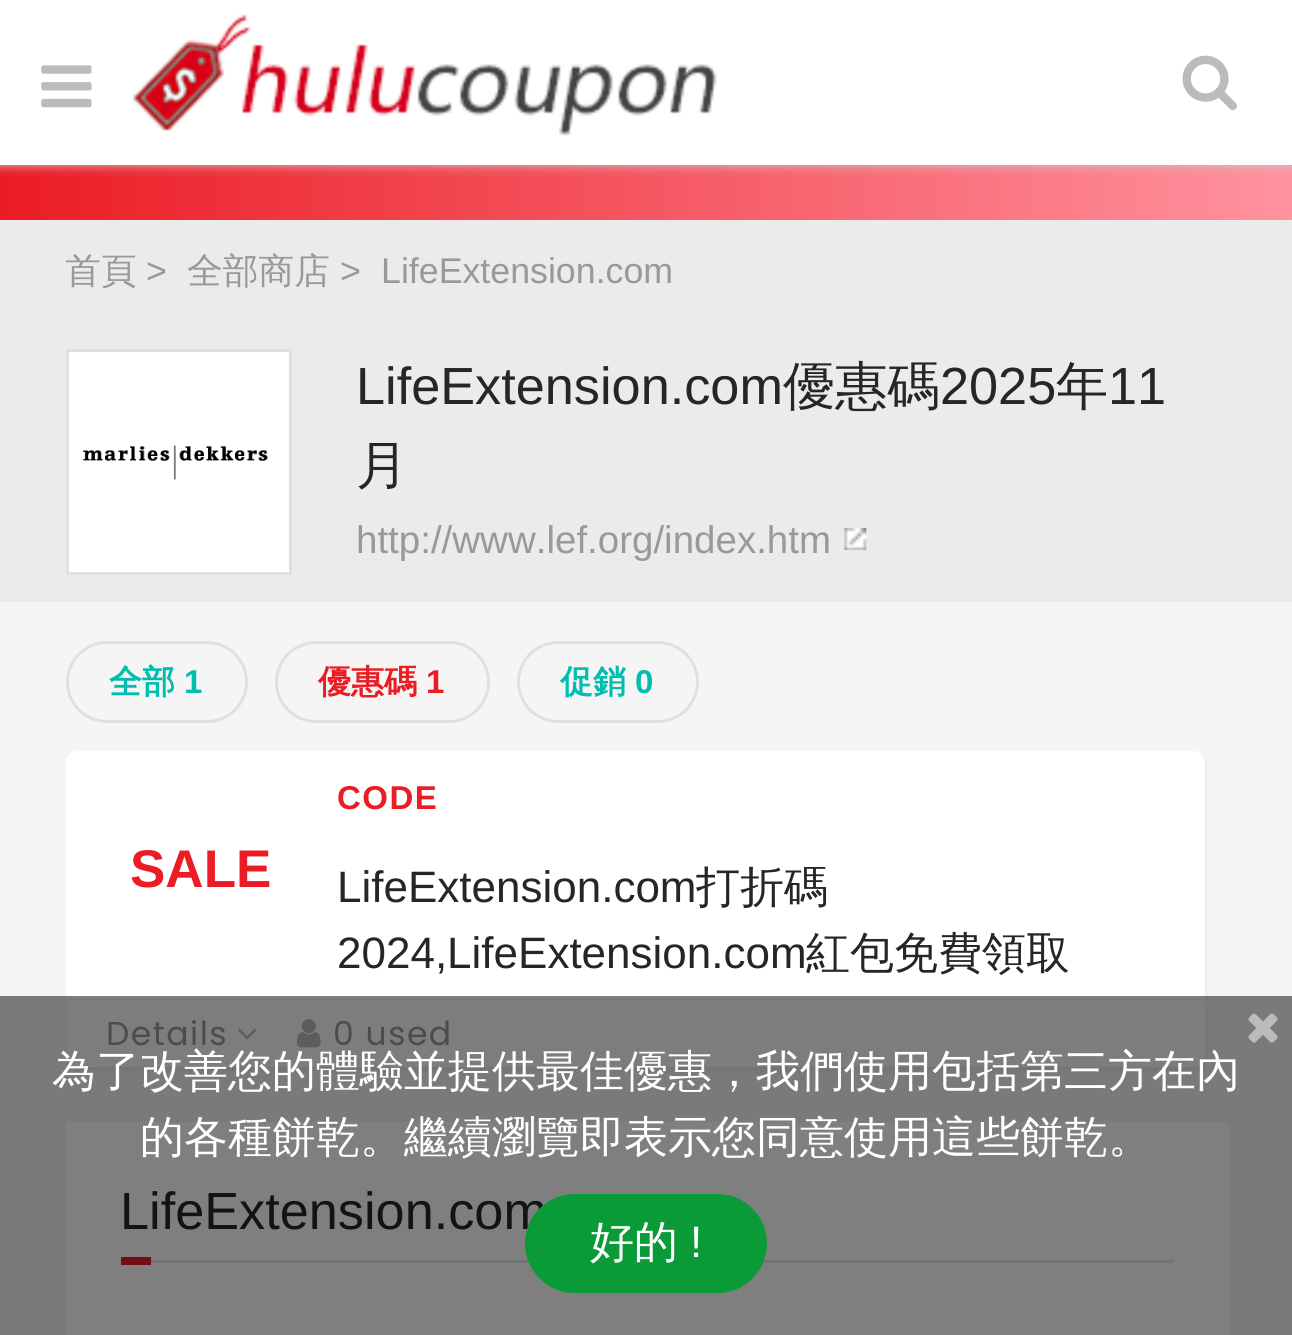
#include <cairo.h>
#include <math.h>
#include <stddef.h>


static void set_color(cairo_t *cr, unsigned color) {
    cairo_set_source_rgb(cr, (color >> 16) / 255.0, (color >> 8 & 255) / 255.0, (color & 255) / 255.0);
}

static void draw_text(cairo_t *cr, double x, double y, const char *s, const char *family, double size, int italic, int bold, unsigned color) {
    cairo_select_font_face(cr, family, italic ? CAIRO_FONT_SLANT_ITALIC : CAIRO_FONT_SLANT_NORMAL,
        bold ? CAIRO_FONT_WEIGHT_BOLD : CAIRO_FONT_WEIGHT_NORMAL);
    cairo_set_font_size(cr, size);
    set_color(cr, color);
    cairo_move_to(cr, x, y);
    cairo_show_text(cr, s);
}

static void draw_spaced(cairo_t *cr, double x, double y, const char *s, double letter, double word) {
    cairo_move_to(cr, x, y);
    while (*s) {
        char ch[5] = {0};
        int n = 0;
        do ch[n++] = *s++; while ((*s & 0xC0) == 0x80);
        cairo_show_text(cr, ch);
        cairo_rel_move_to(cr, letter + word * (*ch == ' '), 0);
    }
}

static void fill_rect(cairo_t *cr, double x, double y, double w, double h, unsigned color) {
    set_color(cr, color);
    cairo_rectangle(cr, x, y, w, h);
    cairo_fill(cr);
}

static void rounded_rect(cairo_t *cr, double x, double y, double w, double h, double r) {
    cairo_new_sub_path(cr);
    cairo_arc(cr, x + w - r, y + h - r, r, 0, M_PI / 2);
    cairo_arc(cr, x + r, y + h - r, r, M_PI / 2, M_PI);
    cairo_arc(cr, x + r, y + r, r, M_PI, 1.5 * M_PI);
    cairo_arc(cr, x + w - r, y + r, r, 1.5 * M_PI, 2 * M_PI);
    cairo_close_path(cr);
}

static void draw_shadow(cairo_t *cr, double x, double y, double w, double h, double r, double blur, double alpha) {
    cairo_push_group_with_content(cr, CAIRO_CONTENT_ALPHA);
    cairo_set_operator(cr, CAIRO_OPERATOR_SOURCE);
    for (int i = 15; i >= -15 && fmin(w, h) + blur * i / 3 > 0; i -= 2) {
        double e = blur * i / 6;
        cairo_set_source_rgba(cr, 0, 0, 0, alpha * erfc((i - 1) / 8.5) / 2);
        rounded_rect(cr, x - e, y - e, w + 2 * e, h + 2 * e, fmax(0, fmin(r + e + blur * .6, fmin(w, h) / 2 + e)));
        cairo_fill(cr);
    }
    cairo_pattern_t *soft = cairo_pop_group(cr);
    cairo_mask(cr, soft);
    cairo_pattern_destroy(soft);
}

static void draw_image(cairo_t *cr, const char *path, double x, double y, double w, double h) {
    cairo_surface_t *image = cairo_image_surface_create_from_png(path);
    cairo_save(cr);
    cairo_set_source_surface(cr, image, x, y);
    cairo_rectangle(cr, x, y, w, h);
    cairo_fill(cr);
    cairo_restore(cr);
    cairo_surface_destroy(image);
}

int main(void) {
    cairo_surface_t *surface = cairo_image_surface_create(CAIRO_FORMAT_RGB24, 1292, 1335);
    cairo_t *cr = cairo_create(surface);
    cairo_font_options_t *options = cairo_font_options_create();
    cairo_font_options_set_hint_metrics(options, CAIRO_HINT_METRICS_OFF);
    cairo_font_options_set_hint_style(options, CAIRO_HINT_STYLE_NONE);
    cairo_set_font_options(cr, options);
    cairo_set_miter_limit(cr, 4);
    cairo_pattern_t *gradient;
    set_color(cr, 0xF5F5F5);
    cairo_paint(cr);
    fill_rect(cr, 0, 0, 1292, 165, 0xFFFFFF);
    gradient = cairo_pattern_create_linear(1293, 192, 0, 193);
    cairo_pattern_add_color_stop_rgba(gradient, 0, 1, 0.573, 0.624, 1);
    cairo_pattern_add_color_stop_rgba(gradient, 1, 0.922, 0.11, 0.141, 1);
    cairo_set_source(cr, gradient);
    cairo_pattern_destroy(gradient);
    cairo_rectangle(cr, 0, 165, 1292, 55);
    cairo_fill(cr);
    cairo_save(cr);
    cairo_rectangle(cr, 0, 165, 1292, 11);
    cairo_clip(cr);
    set_color(cr, 0xCCCCCC);
    draw_shadow(cr, 0, 0, 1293, 165, 0, 5.5, 1);
    cairo_restore(cr);
    draw_image(cr, "assets/img1.png", 41, 65, 51, 43);
    draw_image(cr, "assets/img2.png", 132, 14, 585, 122);
    draw_image(cr, "assets/img3.png", 1182, 55, 55, 56);
    fill_rect(cr, 0, 220, 1292, 382, 0xEBEBEB);
    cairo_save(cr);
    cairo_rectangle(cr, 66, 220, 1163, 382);
    cairo_clip(cr);
    draw_text(cr, 65, 283, "首頁", "WenQuanYi Zen Hei Medium", 35.75, 0, 0, 0x999999);
    cairo_restore(cr);
    draw_text(cr, 146, 283, ">", "Liberation Sans", 35.75, 0, 0, 0x999999);
    draw_text(cr, 187, 283, "全部商店", "WenQuanYi Zen Hei Medium", 35.75, 0, 0, 0x999999);
    draw_text(cr, 340, 283, ">", "Liberation Sans", 35.75, 0, 0, 0x999999);
    draw_text(cr, 381, 283, "LifeExtension.com", "Liberation Sans", 35.75, 0, 0, 0x999999);
    cairo_rectangle(cr, 67.5, 350.5, 223, 223);
    set_color(cr, 0xE0E0E0);
    cairo_set_line_width(cr, 3);
    cairo_stroke(cr);
    fill_rect(cr, 69, 352, 220, 220, 0xFFFFFF);
    draw_image(cr, "assets/img4.png", 83, 445, 185, 35);
    draw_text(cr, 356, 404, "LifeExtension.com", "Liberation Sans", 52.25, 0, 0, 0x262626);
    draw_text(cr, 783, 404, "優惠碼", "WenQuanYi Zen Hei Medium", 52.25, 0, 0, 0x262626);
    draw_text(cr, 940, 404, "2025", "Liberation Sans", 52.25, 0, 0, 0x262626);
    draw_text(cr, 1056, 404, "年", "WenQuanYi Zen Hei Medium", 52.25, 0, 0, 0x262626);
    draw_text(cr, 1108, 404, "11", "Liberation Sans", 52.25, 0, 0, 0x262626);
    draw_text(cr, 356, 483, "月", "WenQuanYi Zen Hei Medium", 52.25, 0, 0, 0x262626);
    draw_text(cr, 356, 553, "http://www.lef.org/index.htm", "Liberation Sans", 38.5, 0, 0, 0x999999);
    draw_image(cr, "assets/img5.png", 844, 528, 23, 22);
    rounded_rect(cr, 67.5, 642.5, 179, 79, 39.5);
    set_color(cr, 0xE0E0E0);
    cairo_stroke(cr);
    draw_text(cr, 109, 693, "全部", "WenQuanYi Zen Hei", 33, 0, 1, 0x00BEAD);
    draw_text(cr, 184, 693, "1", "Liberation Sans", 33, 0, 1, 0x00BEAD);
    rounded_rect(cr, 276.5, 642.5, 212, 79, 39.5);
    set_color(cr, 0xE0E0E0);
    cairo_stroke(cr);
    draw_text(cr, 318, 693, "優惠碼", "WenQuanYi Zen Hei", 33, 0, 1, 0xEB1C24);
    draw_text(cr, 426, 693, "1", "Liberation Sans", 33, 0, 1, 0xEB1C24);
    rounded_rect(cr, 518.5, 642.5, 179, 79, 39.5);
    set_color(cr, 0xE0E0E0);
    cairo_stroke(cr);
    draw_text(cr, 560, 693, "促銷", "WenQuanYi Zen Hei", 33, 0, 1, 0x00BEAD);
    draw_text(cr, 635, 693, "0", "Liberation Sans", 33, 0, 1, 0x00BEAD);
    cairo_save(cr);
    cairo_rectangle(cr, 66, 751, 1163, 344);
    cairo_clip(cr);
    set_color(cr, 0x303030);
    draw_shadow(cr, 66, 754, 1139, 316, 11, 3, 0.1);
    cairo_restore(cr);
    set_color(cr, 0xFFFFFF);
    rounded_rect(cr, 66, 751, 1139, 316, 11);
    cairo_fill(cr);
    draw_text(cr, 130, 887, "SALE", "Liberation Sans", 53, 0, 1, 0xEB1C24);
    cairo_set_font_size(cr, 33);
    draw_spaced(cr, 337, 809, "CODE", 1.5, 0);
    draw_text(cr, 337, 902, "LifeExtension.com", "Liberation Sans", 44, 0, 0, 0x262626);
    draw_text(cr, 696, 902, "打折碼", "WenQuanYi Zen Hei Medium", 44, 0, 0, 0x262626);
    draw_text(cr, 337, 968, "2024,LifeExtension.com", "Liberation Sans", 44, 0, 0, 0x262626);
    draw_text(cr, 806, 968, "紅包免費領取", "WenQuanYi Zen Hei Medium", 44, 0, 0, 0x262626);
    set_color(cr, 0xFAFAFA);
    cairo_new_path(cr);
    cairo_move_to(cr, 66, 998);
    cairo_line_to(cr, 1205, 998);
    cairo_line_to(cr, 1205, 1056);
    cairo_curve_to(cr, 1205, 1062, 1200, 1067, 1194, 1067);
    cairo_line_to(cr, 77, 1067);
    cairo_curve_to(cr, 71, 1067, 66, 1062, 66, 1056);
    cairo_close_path(cr);
    cairo_fill(cr);
    fill_rect(cr, 66, 998, 1139, 3, 0xF5F5F5);
    cairo_select_font_face(cr, "Poppins", CAIRO_FONT_SLANT_NORMAL, CAIRO_FONT_WEIGHT_NORMAL);
    cairo_set_font_size(cr, 33);
    set_color(cr, 0x999999);
    draw_spaced(cr, 106, 1045, "Details", 1.5, 0);
    draw_image(cr, "assets/img6.png", 238, 1028, 19, 12);
    draw_image(cr, "assets/img7.png", 297, 1019, 24, 29);
    draw_spaced(cr, 333, 1045, "0 used", 1.5, 0);
    fill_rect(cr, 66, 1122, 1163, 213, 0xFFFFFF);
    draw_text(cr, 120, 1229, "LifeExtension.com", "Liberation Sans", 52.25, 0, 0, 0x262626);
    fill_rect(cr, 121, 1257, 30, 8, 0xEB1C24);
    fill_rect(cr, 151, 1260, 1023, 3, 0xE6E6E6);
    cairo_set_source_rgba(cr, 0, 0, 0, 0.5);
    cairo_rectangle(cr, 0, 996, 1292, 339);
    cairo_fill(cr);
    draw_image(cr, "assets/img8.png", 1248, 1013, 30, 30);
    draw_text(cr, 52, 1086, "為了改善您的體驗並提供最佳優惠，我們使用包括第三方在內", "WenQuanYi Zen Hei Medium", 44, 0, 0, 0xFFFFFF);
    draw_text(cr, 140, 1152, "的各種餅乾。繼續瀏覽即表示您同意使用這些餅乾。", "WenQuanYi Zen Hei Medium", 44, 0, 0, 0xFFFFFF);
    set_color(cr, 0x0A9A38);
    rounded_rect(cr, 525, 1194, 242, 99, 49.5);
    cairo_fill(cr);
    draw_text(cr, 590, 1257, "好的", "WenQuanYi Zen Hei Medium", 44, 0, 0, 0xFFFFFF);
    draw_text(cr, 690, 1257, "!", "Liberation Sans", 44, 0, 0, 0xFFFFFF);
    cairo_surface_write_to_png(surface, "output.png");
    cairo_font_options_destroy(options);
    cairo_destroy(cr);
    cairo_surface_destroy(surface);
    return 0;
}
